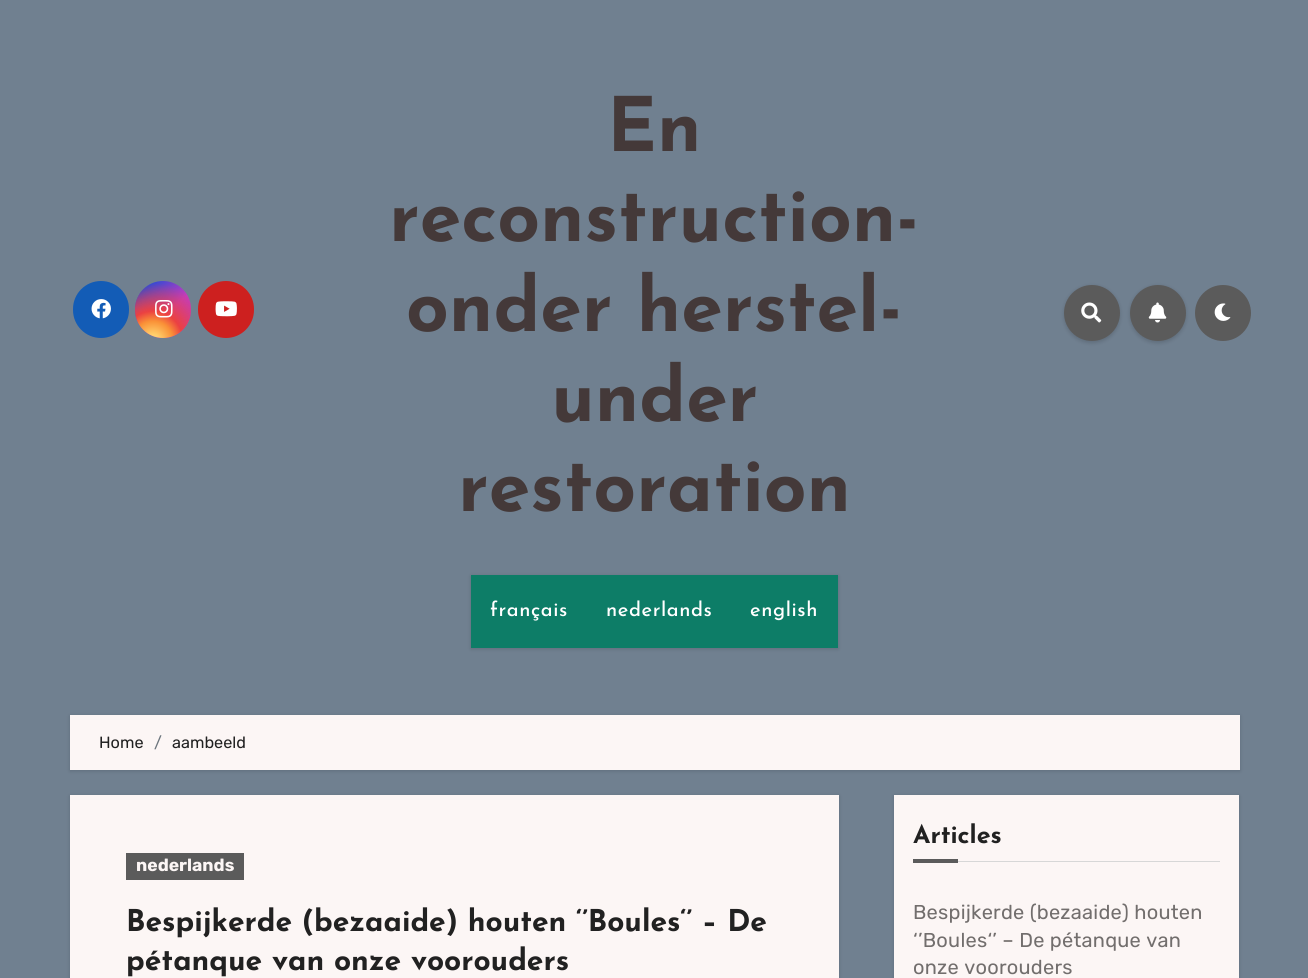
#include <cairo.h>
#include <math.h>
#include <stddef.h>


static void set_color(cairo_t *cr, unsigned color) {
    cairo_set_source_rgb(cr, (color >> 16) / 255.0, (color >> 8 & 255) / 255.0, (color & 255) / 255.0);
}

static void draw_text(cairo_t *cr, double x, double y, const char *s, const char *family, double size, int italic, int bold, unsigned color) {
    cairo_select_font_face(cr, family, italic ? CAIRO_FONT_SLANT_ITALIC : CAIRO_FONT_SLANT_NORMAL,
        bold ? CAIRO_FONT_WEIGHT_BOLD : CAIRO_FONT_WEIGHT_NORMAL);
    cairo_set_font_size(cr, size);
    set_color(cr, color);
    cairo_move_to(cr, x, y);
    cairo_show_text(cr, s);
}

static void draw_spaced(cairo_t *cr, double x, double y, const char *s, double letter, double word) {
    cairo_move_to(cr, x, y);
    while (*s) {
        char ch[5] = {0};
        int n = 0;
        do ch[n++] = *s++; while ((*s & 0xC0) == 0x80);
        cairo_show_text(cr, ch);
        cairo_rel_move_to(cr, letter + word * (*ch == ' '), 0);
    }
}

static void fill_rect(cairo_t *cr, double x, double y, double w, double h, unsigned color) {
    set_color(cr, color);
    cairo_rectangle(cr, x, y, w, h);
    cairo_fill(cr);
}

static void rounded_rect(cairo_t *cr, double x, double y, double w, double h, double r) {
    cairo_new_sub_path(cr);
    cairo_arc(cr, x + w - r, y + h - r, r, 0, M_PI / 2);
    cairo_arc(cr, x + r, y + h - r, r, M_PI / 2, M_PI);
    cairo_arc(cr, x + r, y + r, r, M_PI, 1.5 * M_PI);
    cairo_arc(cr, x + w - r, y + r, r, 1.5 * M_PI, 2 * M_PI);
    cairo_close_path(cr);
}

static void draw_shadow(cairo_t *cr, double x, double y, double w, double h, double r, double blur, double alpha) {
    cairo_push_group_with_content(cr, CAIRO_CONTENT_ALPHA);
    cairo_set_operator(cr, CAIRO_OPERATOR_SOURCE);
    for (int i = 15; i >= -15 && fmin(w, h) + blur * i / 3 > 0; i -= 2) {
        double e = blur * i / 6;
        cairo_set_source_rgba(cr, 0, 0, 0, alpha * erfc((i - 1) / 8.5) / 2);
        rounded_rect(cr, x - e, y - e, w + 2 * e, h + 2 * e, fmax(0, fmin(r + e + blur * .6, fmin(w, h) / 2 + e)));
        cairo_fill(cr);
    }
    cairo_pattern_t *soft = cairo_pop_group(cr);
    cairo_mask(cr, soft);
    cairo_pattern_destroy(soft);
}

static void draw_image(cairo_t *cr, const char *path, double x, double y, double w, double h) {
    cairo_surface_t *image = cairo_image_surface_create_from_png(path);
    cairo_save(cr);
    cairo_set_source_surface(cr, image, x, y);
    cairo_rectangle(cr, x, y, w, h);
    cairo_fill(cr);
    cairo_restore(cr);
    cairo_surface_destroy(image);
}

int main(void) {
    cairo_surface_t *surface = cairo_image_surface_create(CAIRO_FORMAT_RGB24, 1308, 978);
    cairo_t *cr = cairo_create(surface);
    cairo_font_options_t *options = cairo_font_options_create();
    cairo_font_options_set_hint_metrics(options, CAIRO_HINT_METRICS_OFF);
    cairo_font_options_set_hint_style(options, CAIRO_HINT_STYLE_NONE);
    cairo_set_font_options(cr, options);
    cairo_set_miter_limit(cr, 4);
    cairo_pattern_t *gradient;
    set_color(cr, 0x708090);
    cairo_paint(cr);
    set_color(cr, 0x135CB6);
    rounded_rect(cr, 73, 281, 56, 57, 28);
    cairo_fill(cr);
    draw_image(cr, "assets/img1.png", 91, 299, 20, 20);
    gradient = cairo_pattern_create_linear(135, 281, 191, 338);
    cairo_pattern_add_color_stop_rgba(gradient, 0.12, 0.137, 0.294, 0.843, 1);
    cairo_pattern_add_color_stop_rgba(gradient, 0.58, 0.765, 0.235, 0.745, 1);
    cairo_set_source(cr, gradient);
    cairo_pattern_destroy(gradient);
    rounded_rect(cr, 135, 281, 56, 57, 28);
    cairo_fill(cr);
    gradient = cairo_pattern_create_radial(153, 341, 0, 153, 341, 71);
    cairo_pattern_add_color_stop_rgba(gradient, 0, 1, 0.882, 0.49, 1);
    cairo_pattern_add_color_stop_rgba(gradient, 0.1, 1, 0.804, 0.412, 1);
    cairo_pattern_add_color_stop_rgba(gradient, 0.28, 0.98, 0.569, 0.216, 1);
    cairo_pattern_add_color_stop_rgba(gradient, 0.42, 0.922, 0.255, 0.255, 1);
    cairo_pattern_add_color_stop_rgba(gradient, 0.82, 0.922, 0.255, 0.255, 0);
    cairo_set_source(cr, gradient);
    cairo_pattern_destroy(gradient);
    rounded_rect(cr, 135, 281, 56, 57, 28);
    cairo_fill(cr);
    draw_image(cr, "assets/img2.png", 155, 300, 18, 18);
    set_color(cr, 0xCD201F);
    rounded_rect(cr, 198, 281, 56, 57, 28);
    cairo_fill(cr);
    draw_image(cr, "assets/img3.png", 215, 301, 22, 16);
    draw_text(cr, 607, 151, "En", "Josefin Sans", 75, 0, 1, 0x443939);
    draw_text(cr, 389, 241, "reconstruction-", "Josefin Sans", 75, 0, 1, 0x443939);
    draw_text(cr, 406, 331, "onder herstel-", "Josefin Sans", 75, 0, 1, 0x443939);
    draw_text(cr, 551, 421, "under", "Josefin Sans", 75, 0, 1, 0x443939);
    draw_text(cr, 458, 511, "restoration", "Josefin Sans", 75, 0, 1, 0x443939);
    set_color(cr, 0x000000);
    draw_shadow(cr, 1064, 286, 56, 57, 28, 2, 0.15);
    set_color(cr, 0x5B5B5B);
    cairo_arc(cr, 1092, 313, 28, 0, 2 * M_PI);
    cairo_fill(cr);
    draw_image(cr, "assets/img4.png", 1081, 302, 21, 21);
    set_color(cr, 0x000000);
    draw_shadow(cr, 1130, 286, 56, 57, 28, 2, 0.15);
    set_color(cr, 0x5B5B5B);
    cairo_arc(cr, 1158, 313, 28, 0, 2 * M_PI);
    cairo_fill(cr);
    draw_image(cr, "assets/img5.png", 1148, 302, 19, 21);
    cairo_arc(cr, 1223, 313, 28, 0, 2 * M_PI);
    cairo_fill(cr);
    draw_image(cr, "assets/img6.png", 1214, 303, 17, 18);
    set_color(cr, 0x000000);
    draw_shadow(cr, 471, 576, 367, 73, 0, 2, 0.15);
    fill_rect(cr, 471, 575, 367, 73, 0x0D7D67);
    cairo_select_font_face(cr, "Josefin Sans Medium", CAIRO_FONT_SLANT_NORMAL, CAIRO_FONT_WEIGHT_NORMAL);
    cairo_set_font_size(cr, 20);
    set_color(cr, 0xFFFFFF);
    draw_spaced(cr, 490, 616, "français", 0.6, 0);
    draw_spaced(cr, 606, 616, "nederlands", 0.6, 0);
    draw_spaced(cr, 750, 616, "english", 0.6, 0);
    set_color(cr, 0x000000);
    draw_shadow(cr, 70, 716, 1170, 55, 0, 2, 0.15);
    fill_rect(cr, 70, 715, 1170, 55, 0xFCF6F5);
    draw_text(cr, 99, 748, "Home", "Rubik Light", 16.25, 0, 0, 0x212121);
    draw_text(cr, 154, 748, "/", "Rubik Light", 16.25, 0, 0, 0x6C757D);
    draw_text(cr, 172, 748, "aambeeld", "Rubik Light", 16.25, 0, 0, 0x212121);
    set_color(cr, 0x000000);
    draw_shadow(cr, 70, 796, 769, 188, 0, 2, 0.15);
    fill_rect(cr, 70, 795, 769, 183, 0xFCF6F5);
    fill_rect(cr, 126, 853, 118, 27, 0x5B5B5B);
    draw_text(cr, 136, 871, "nederlands", "Rubik", 17.5, 0, 1, 0xFCF6F5);
    draw_text(cr, 126, 931, "Bespijkerde (bezaaide) houten ‘’Boules‘’ – De", "Josefin Sans", 30, 0, 1, 0x212121);
    draw_text(cr, 126, 970, "pétanque van onze voorouders", "Josefin Sans", 30, 0, 1, 0x212121);
    set_color(cr, 0x000000);
    draw_shadow(cr, 894, 796, 345, 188, 0, 2, 0.15);
    fill_rect(cr, 894, 795, 345, 183, 0xFCF6F5);
    fill_rect(cr, 958, 861, 262, 1, 0xD7D7D7);
    draw_text(cr, 913, 843, "Articles", "Josefin Sans", 25, 0, 1, 0x212121);
    fill_rect(cr, 913, 859, 45, 4, 0x5B5B5B);
    cairo_select_font_face(cr, "Rubik Light", CAIRO_FONT_SLANT_NORMAL, CAIRO_FONT_WEIGHT_NORMAL);
    cairo_set_font_size(cr, 20);
    set_color(cr, 0x726E6D);
    draw_spaced(cr, 913, 919, "Bespijkerde (bezaaide) houten", 0.25, 0);
    draw_spaced(cr, 913, 947, "‘’Boules‘’ – De pétanque van", 0.25, 0);
    draw_spaced(cr, 913, 974, "onze voorouders", 0.25, 0);
    cairo_surface_write_to_png(surface, "output.png");
    cairo_font_options_destroy(options);
    cairo_destroy(cr);
    cairo_surface_destroy(surface);
    return 0;
}
